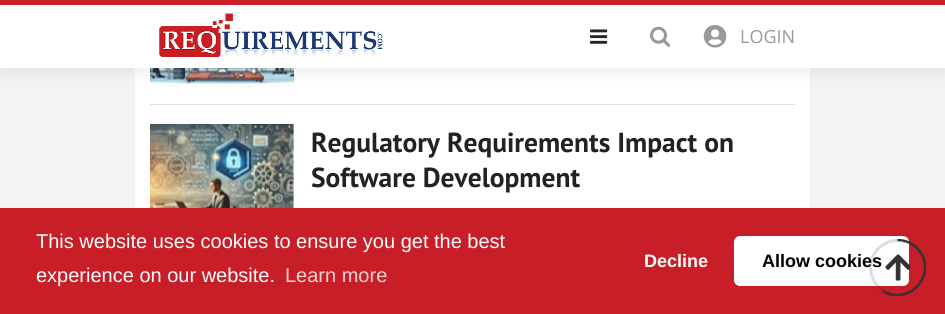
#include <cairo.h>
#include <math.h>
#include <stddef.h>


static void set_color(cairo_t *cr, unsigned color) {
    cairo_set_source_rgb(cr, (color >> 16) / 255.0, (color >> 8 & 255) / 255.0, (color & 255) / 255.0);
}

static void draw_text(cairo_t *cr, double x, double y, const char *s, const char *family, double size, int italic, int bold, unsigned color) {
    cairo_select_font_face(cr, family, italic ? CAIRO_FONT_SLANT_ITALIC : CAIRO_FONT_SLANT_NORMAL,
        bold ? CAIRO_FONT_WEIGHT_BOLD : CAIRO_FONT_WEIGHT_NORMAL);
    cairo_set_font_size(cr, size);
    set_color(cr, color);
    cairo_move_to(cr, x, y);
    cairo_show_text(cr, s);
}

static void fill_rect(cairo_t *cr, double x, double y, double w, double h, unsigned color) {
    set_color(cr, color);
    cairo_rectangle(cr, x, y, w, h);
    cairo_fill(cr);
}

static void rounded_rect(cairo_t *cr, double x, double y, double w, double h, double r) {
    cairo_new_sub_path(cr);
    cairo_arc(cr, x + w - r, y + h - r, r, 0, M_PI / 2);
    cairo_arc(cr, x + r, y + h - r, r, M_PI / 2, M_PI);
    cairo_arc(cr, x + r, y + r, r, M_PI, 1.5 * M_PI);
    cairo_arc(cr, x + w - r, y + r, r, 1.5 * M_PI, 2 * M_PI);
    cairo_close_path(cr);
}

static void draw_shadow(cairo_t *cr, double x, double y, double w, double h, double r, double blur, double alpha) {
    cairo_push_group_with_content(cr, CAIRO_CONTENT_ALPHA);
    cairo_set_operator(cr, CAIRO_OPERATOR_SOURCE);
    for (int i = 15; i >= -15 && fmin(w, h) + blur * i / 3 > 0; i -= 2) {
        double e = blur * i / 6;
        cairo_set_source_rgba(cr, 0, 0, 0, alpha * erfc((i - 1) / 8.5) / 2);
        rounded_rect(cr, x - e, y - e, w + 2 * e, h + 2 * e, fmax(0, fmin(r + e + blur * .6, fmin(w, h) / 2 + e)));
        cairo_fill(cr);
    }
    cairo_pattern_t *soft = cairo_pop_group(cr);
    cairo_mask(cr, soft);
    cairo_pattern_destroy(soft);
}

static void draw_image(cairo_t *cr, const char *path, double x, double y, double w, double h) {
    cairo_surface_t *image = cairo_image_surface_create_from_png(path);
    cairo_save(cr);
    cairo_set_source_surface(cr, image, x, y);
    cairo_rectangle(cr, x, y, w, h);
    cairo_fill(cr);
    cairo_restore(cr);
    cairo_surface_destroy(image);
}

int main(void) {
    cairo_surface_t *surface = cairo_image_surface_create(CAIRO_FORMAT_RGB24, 945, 314);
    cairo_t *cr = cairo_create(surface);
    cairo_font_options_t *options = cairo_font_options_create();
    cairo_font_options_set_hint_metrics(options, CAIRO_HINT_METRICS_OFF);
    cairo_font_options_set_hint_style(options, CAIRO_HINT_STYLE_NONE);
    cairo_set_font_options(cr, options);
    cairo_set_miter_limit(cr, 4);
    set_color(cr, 0xF3F3F3);
    cairo_paint(cr);
    fill_rect(cr, 135, 68, 675, 140, 0xFFFFFF);
    draw_image(cr, "assets/img5.png", 150, 68, 144, 19);
    set_color(cr, 0x000000);
    draw_shadow(cr, 0, 0, 945, 68, 0, 10, 0.1);
    fill_rect(cr, 0, 5, 945, 63, 0xFFFFFF);
    fill_rect(cr, 0, 0, 945, 5, 0xC81E27);
    draw_image(cr, "assets/img1.png", 159, 13, 224, 44);
    draw_image(cr, "assets/img2.png", 590, 29, 18, 15);
    draw_image(cr, "assets/img3.png", 650, 26, 21, 21);
    draw_image(cr, "assets/img4.png", 703, 25, 24, 23);
    draw_text(cr, 740, 43, "LOGIN", "Open Sans", 18, 0, 0, 0x999999);
    fill_rect(cr, 150, 104, 645, 1, 0xDFDFDF);
    draw_image(cr, "assets/img6.png", 150, 124, 144, 84);
    draw_text(cr, 311, 152, "Regulatory Requirements Impact on", "PT Sans", 27.5, 0, 1, 0x222222);
    draw_text(cr, 311, 187, "Software Development", "PT Sans", 27.5, 0, 1, 0x222222);
    fill_rect(cr, 0, 208, 945, 106, 0xC81E27);
    draw_text(cr, 36, 248, "This website uses cookies to ensure you get the best", "Liberation Sans", 20, 0, 0, 0xFFFFFF);
    draw_text(cr, 36, 282, "experience on our website.", "Liberation Sans", 20, 0, 0, 0xFFFFFF);
    draw_text(cr, 285, 282, "Learn more", "Liberation Sans", 20, 0, 0, 0xF4D2D4);
    draw_text(cr, 644, 267, "Decline", "Liberation Sans", 18, 0, 1, 0xFFFFFF);
    rounded_rect(cr, 734, 236, 175, 50, 6);
    cairo_fill(cr);
    draw_text(cr, 762, 267, "Allow cookies", "Liberation Sans", 18, 0, 1, 0x000000);
    cairo_new_path(cr);
    cairo_arc(cr, 897.5, 267.5, 27, 0, 2 * M_PI);
    cairo_set_source_rgba(cr, 0, 0, 0, 0.14);
    cairo_set_line_width(cr, 3);
    cairo_stroke(cr);
    cairo_save(cr);
    cairo_rectangle(cr, 869, 239, 57, 57);
    cairo_clip(cr);
    cairo_new_path(cr);
    cairo_move_to(cr, 897.5, 240);
    cairo_curve_to(cr, 905, 240, 912, 243, 917, 248);
    cairo_curve_to(cr, 940.5, 271.5, 909.5, 308, 882.5, 291);
    set_color(cr, 0x333333);
    cairo_set_line_width(cr, 2.3);
    cairo_stroke(cr);
    cairo_restore(cr);
    draw_image(cr, "assets/img7.png", 885, 254, 26, 27);
    cairo_surface_write_to_png(surface, "output.png");
    cairo_font_options_destroy(options);
    cairo_destroy(cr);
    cairo_surface_destroy(surface);
    return 0;
}
